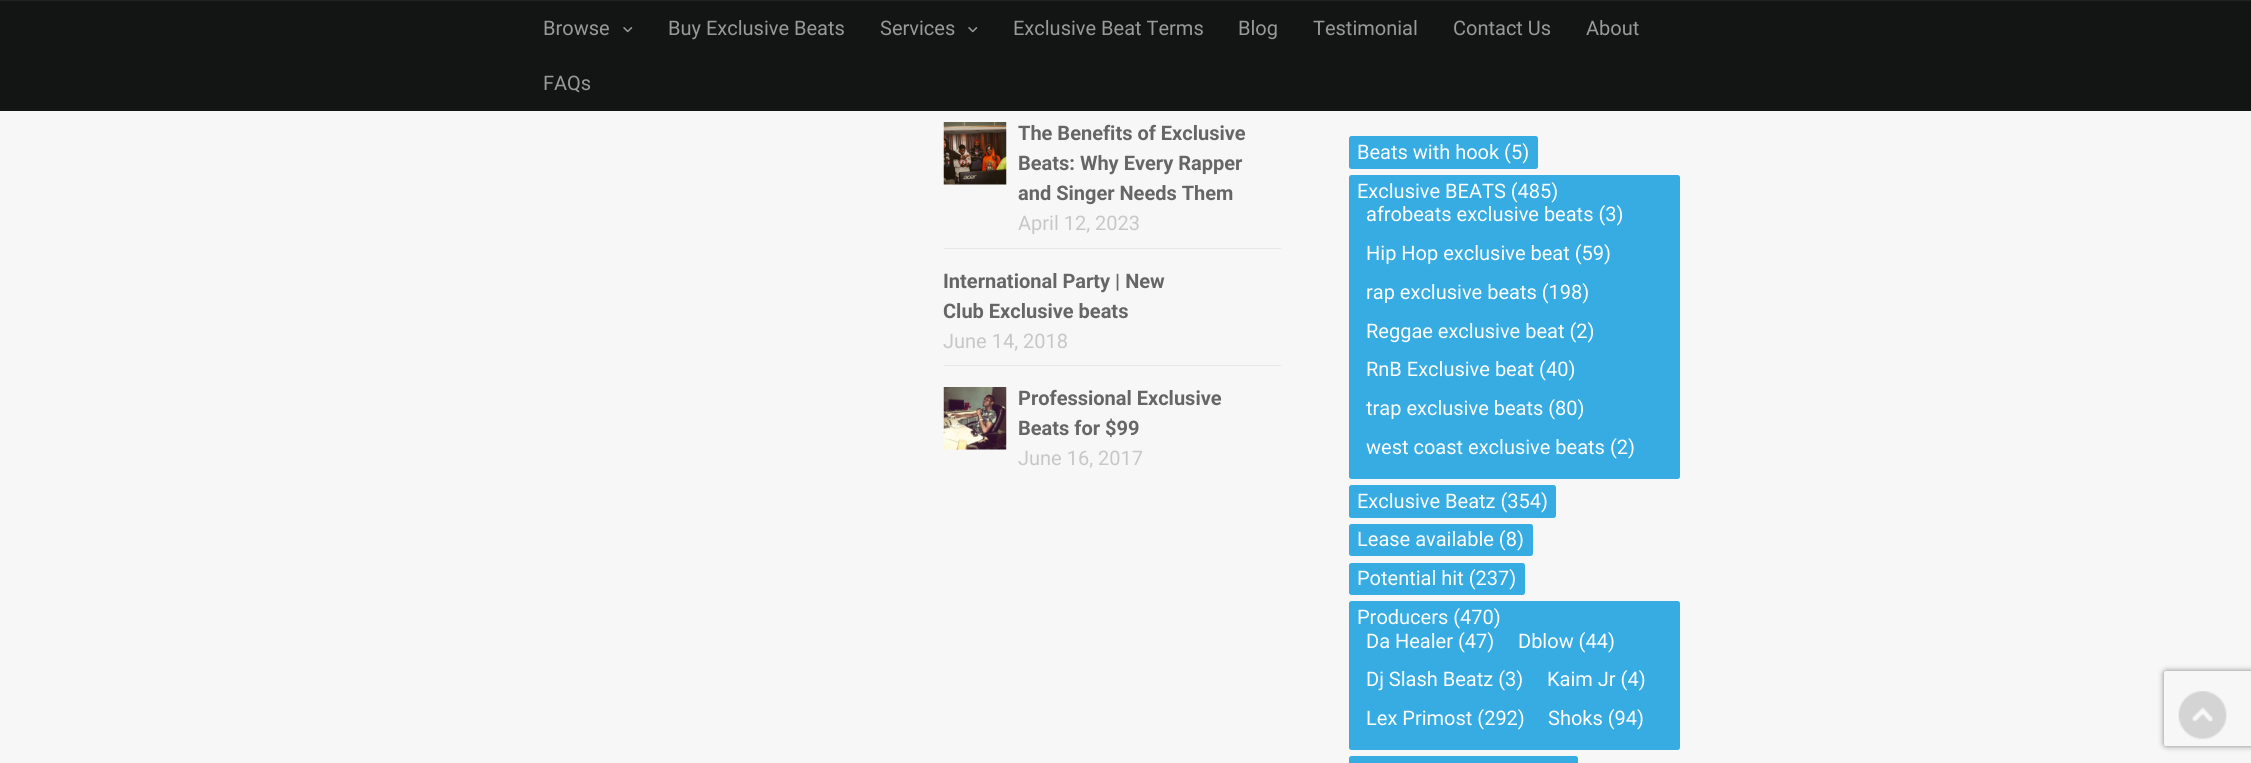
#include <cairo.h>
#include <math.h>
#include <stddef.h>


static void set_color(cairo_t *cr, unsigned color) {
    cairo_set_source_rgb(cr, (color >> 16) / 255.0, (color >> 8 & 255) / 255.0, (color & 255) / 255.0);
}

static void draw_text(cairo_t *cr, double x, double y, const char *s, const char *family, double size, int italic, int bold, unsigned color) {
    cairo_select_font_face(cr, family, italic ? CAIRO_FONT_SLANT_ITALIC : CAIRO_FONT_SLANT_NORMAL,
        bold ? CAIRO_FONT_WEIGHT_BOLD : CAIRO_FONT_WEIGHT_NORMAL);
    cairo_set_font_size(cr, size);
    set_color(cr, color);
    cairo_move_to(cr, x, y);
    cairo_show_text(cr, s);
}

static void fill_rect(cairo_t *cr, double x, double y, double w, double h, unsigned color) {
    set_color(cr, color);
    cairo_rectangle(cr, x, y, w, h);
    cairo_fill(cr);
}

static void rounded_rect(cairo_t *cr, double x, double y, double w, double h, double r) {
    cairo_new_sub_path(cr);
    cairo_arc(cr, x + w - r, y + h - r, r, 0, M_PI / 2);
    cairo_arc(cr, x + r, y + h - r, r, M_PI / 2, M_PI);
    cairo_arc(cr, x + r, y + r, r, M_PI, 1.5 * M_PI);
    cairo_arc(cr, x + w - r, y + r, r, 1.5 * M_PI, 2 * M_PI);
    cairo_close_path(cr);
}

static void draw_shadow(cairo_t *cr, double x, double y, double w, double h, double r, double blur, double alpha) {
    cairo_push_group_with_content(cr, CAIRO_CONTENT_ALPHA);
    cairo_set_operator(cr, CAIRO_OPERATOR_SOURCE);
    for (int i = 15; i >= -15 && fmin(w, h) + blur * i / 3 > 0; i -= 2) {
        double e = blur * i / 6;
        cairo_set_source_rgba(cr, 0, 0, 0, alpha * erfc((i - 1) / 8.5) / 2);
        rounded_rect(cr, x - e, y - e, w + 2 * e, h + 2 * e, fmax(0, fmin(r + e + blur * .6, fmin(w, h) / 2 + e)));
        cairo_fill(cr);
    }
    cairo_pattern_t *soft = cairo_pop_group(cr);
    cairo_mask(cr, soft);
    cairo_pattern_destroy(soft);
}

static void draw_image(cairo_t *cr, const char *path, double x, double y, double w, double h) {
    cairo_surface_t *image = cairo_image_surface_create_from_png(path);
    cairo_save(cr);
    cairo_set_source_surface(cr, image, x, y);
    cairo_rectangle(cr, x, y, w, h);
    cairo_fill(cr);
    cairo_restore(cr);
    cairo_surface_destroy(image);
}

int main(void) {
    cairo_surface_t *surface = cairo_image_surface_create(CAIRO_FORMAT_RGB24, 2251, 763);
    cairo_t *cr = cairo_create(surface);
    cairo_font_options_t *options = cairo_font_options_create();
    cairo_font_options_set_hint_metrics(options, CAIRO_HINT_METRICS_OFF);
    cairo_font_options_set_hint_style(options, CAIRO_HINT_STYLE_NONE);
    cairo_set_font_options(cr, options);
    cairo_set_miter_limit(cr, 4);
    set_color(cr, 0xF7F7F7);
    cairo_paint(cr);
    fill_rect(cr, 0, 1, 2251, 110, 0x131414);
    fill_rect(cr, 0, 0, 2251, 1, 0x212222);
    draw_text(cr, 543, 35, "Browse", "Roboto", 20, 0, 0, 0x999999);
    draw_image(cr, "assets/img1.png", 623, 27, 10, 6);
    draw_text(cr, 668, 35, "Buy Exclusive Beats", "Roboto", 20, 0, 0, 0x999999);
    draw_text(cr, 880, 35, "Services", "Roboto", 20, 0, 0, 0x999999);
    draw_image(cr, "assets/img1.png", 968, 27, 10, 6);
    draw_text(cr, 1013, 35, "Exclusive Beat Terms", "Roboto", 20, 0, 0, 0x999999);
    draw_text(cr, 1238, 35, "Blog", "Roboto", 20, 0, 0, 0x999999);
    draw_text(cr, 1313, 35, "Testimonial", "Roboto", 20, 0, 0, 0x999999);
    draw_text(cr, 1453, 35, "Contact Us", "Roboto", 20, 0, 0, 0x999999);
    draw_text(cr, 1586, 35, "About", "Roboto", 20, 0, 0, 0x999999);
    draw_text(cr, 543, 90, "FAQs", "Roboto", 20, 0, 0, 0x999999);
    fill_rect(cr, 944, 248, 337, 1, 0xE8E8E8);
    draw_image(cr, "assets/img2.png", 943, 122, 64, 63);
    draw_text(cr, 1018, 140, "The Benefits of Exclusive", "Roboto", 20, 0, 1, 0x666666);
    draw_text(cr, 1018, 170, "Beats: Why Every Rapper", "Roboto", 20, 0, 1, 0x666666);
    draw_text(cr, 1018, 200, "and Singer Needs Them", "Roboto", 20, 0, 1, 0x666666);
    draw_text(cr, 1018, 230, "April 12, 2023", "Roboto", 20, 0, 0, 0xC7C7C7);
    fill_rect(cr, 944, 365, 337, 1, 0xE8E8E8);
    draw_text(cr, 943, 288, "International Party | New", "Roboto", 20, 0, 1, 0x666666);
    draw_text(cr, 943, 318, "Club Exclusive beats", "Roboto", 20, 0, 1, 0x666666);
    draw_text(cr, 943, 348, "June 14, 2018", "Roboto", 20, 0, 0, 0xC7C7C7);
    draw_image(cr, "assets/img3.png", 943, 387, 64, 63);
    draw_text(cr, 1018, 405, "Professional Exclusive", "Roboto", 20, 0, 1, 0x666666);
    draw_text(cr, 1018, 435, "Beats for $99", "Roboto", 20, 0, 1, 0x666666);
    draw_text(cr, 1018, 465, "June 16, 2017", "Roboto", 20, 0, 0, 0xC7C7C7);
    set_color(cr, 0x36ACE3);
    rounded_rect(cr, 1349, 136, 189, 33, 2.5);
    cairo_fill(cr);
    draw_text(cr, 1357, 159, "Beats with hook (5)", "Roboto", 20, 0, 0, 0xFFFFFF);
    set_color(cr, 0x36ACE3);
    rounded_rect(cr, 1349, 175, 331, 304, 2.5);
    cairo_fill(cr);
    draw_text(cr, 1357, 198, "Exclusive BEATS (485)", "Roboto", 20, 0, 0, 0xFFFFFF);
    draw_text(cr, 1366, 221, "afrobeats exclusive beats (3)", "Roboto", 20, 0, 0, 0xFFFFFF);
    draw_text(cr, 1366, 260, "Hip Hop exclusive beat (59)", "Roboto", 20, 0, 0, 0xFFFFFF);
    draw_text(cr, 1366, 299, "rap exclusive beats (198)", "Roboto", 20, 0, 0, 0xFFFFFF);
    draw_text(cr, 1366, 338, "Reggae exclusive beat (2)", "Roboto", 20, 0, 0, 0xFFFFFF);
    draw_text(cr, 1366, 376, "RnB Exclusive beat (40)", "Roboto", 20, 0, 0, 0xFFFFFF);
    draw_text(cr, 1366, 415, "trap exclusive beats (80)", "Roboto", 20, 0, 0, 0xFFFFFF);
    draw_text(cr, 1366, 454, "west coast exclusive beats (2)", "Roboto", 20, 0, 0, 0xFFFFFF);
    set_color(cr, 0x36ACE3);
    rounded_rect(cr, 1349, 485, 207, 33, 2.5);
    cairo_fill(cr);
    draw_text(cr, 1357, 508, "Exclusive Beatz (354)", "Roboto", 20, 0, 0, 0xFFFFFF);
    set_color(cr, 0x36ACE3);
    rounded_rect(cr, 1349, 524, 184, 32, 2.5);
    cairo_fill(cr);
    draw_text(cr, 1357, 546, "Lease available (8)", "Roboto", 20, 0, 0, 0xFFFFFF);
    set_color(cr, 0x36ACE3);
    rounded_rect(cr, 1349, 563, 176, 32, 2.5);
    cairo_fill(cr);
    draw_text(cr, 1357, 585, "Potential hit (237)", "Roboto", 20, 0, 0, 0xFFFFFF);
    set_color(cr, 0x36ACE3);
    rounded_rect(cr, 1349, 601, 331, 149, 2.5);
    cairo_fill(cr);
    draw_text(cr, 1357, 624, "Producers (470)", "Roboto", 20, 0, 0, 0xFFFFFF);
    draw_text(cr, 1366, 648, "Da Healer (47)", "Roboto", 20, 0, 0, 0xFFFFFF);
    draw_text(cr, 1518, 648, "Dblow (44)", "Roboto", 20, 0, 0, 0xFFFFFF);
    draw_text(cr, 1366, 686, "Dj Slash Beatz (3)", "Roboto", 20, 0, 0, 0xFFFFFF);
    draw_text(cr, 1547, 686, "Kaim Jr (4)", "Roboto", 20, 0, 0, 0xFFFFFF);
    draw_text(cr, 1366, 725, "Lex Primost (292)", "Roboto", 20, 0, 0, 0xFFFFFF);
    draw_text(cr, 1548, 725, "Shoks (94)", "Roboto", 20, 0, 0, 0xFFFFFF);
    set_color(cr, 0x36ACE3);
    rounded_rect(cr, 1349, 756, 229, 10, 2.5);
    cairo_fill(cr);
    cairo_save(cr);
    cairo_set_fill_rule(cr, CAIRO_FILL_RULE_EVEN_ODD);
    cairo_new_path(cr);
    cairo_move_to(cr, 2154, 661);
    cairo_line_to(cr, 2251, 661);
    cairo_line_to(cr, 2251, 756);
    cairo_line_to(cr, 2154, 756);
    cairo_close_path(cr);
    cairo_move_to(cr, 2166.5, 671);
    cairo_line_to(cr, 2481.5, 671);
    cairo_curve_to(cr, 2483, 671, 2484, 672, 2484, 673.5);
    cairo_line_to(cr, 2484, 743.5);
    cairo_curve_to(cr, 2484, 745, 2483, 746, 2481.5, 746);
    cairo_line_to(cr, 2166.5, 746);
    cairo_curve_to(cr, 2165, 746, 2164, 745, 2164, 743.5);
    cairo_line_to(cr, 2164, 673.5);
    cairo_curve_to(cr, 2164, 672, 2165, 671, 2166.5, 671);
    cairo_close_path(cr);
    cairo_clip(cr);
    set_color(cr, 0x808080);
    draw_shadow(cr, 2164, 671, 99, 75, 2.5, 3, 1);
    cairo_restore(cr);
    draw_image(cr, "assets/img4.png", 2178, 691, 49, 49);
    cairo_surface_write_to_png(surface, "output.png");
    cairo_font_options_destroy(options);
    cairo_destroy(cr);
    cairo_surface_destroy(surface);
    return 0;
}
